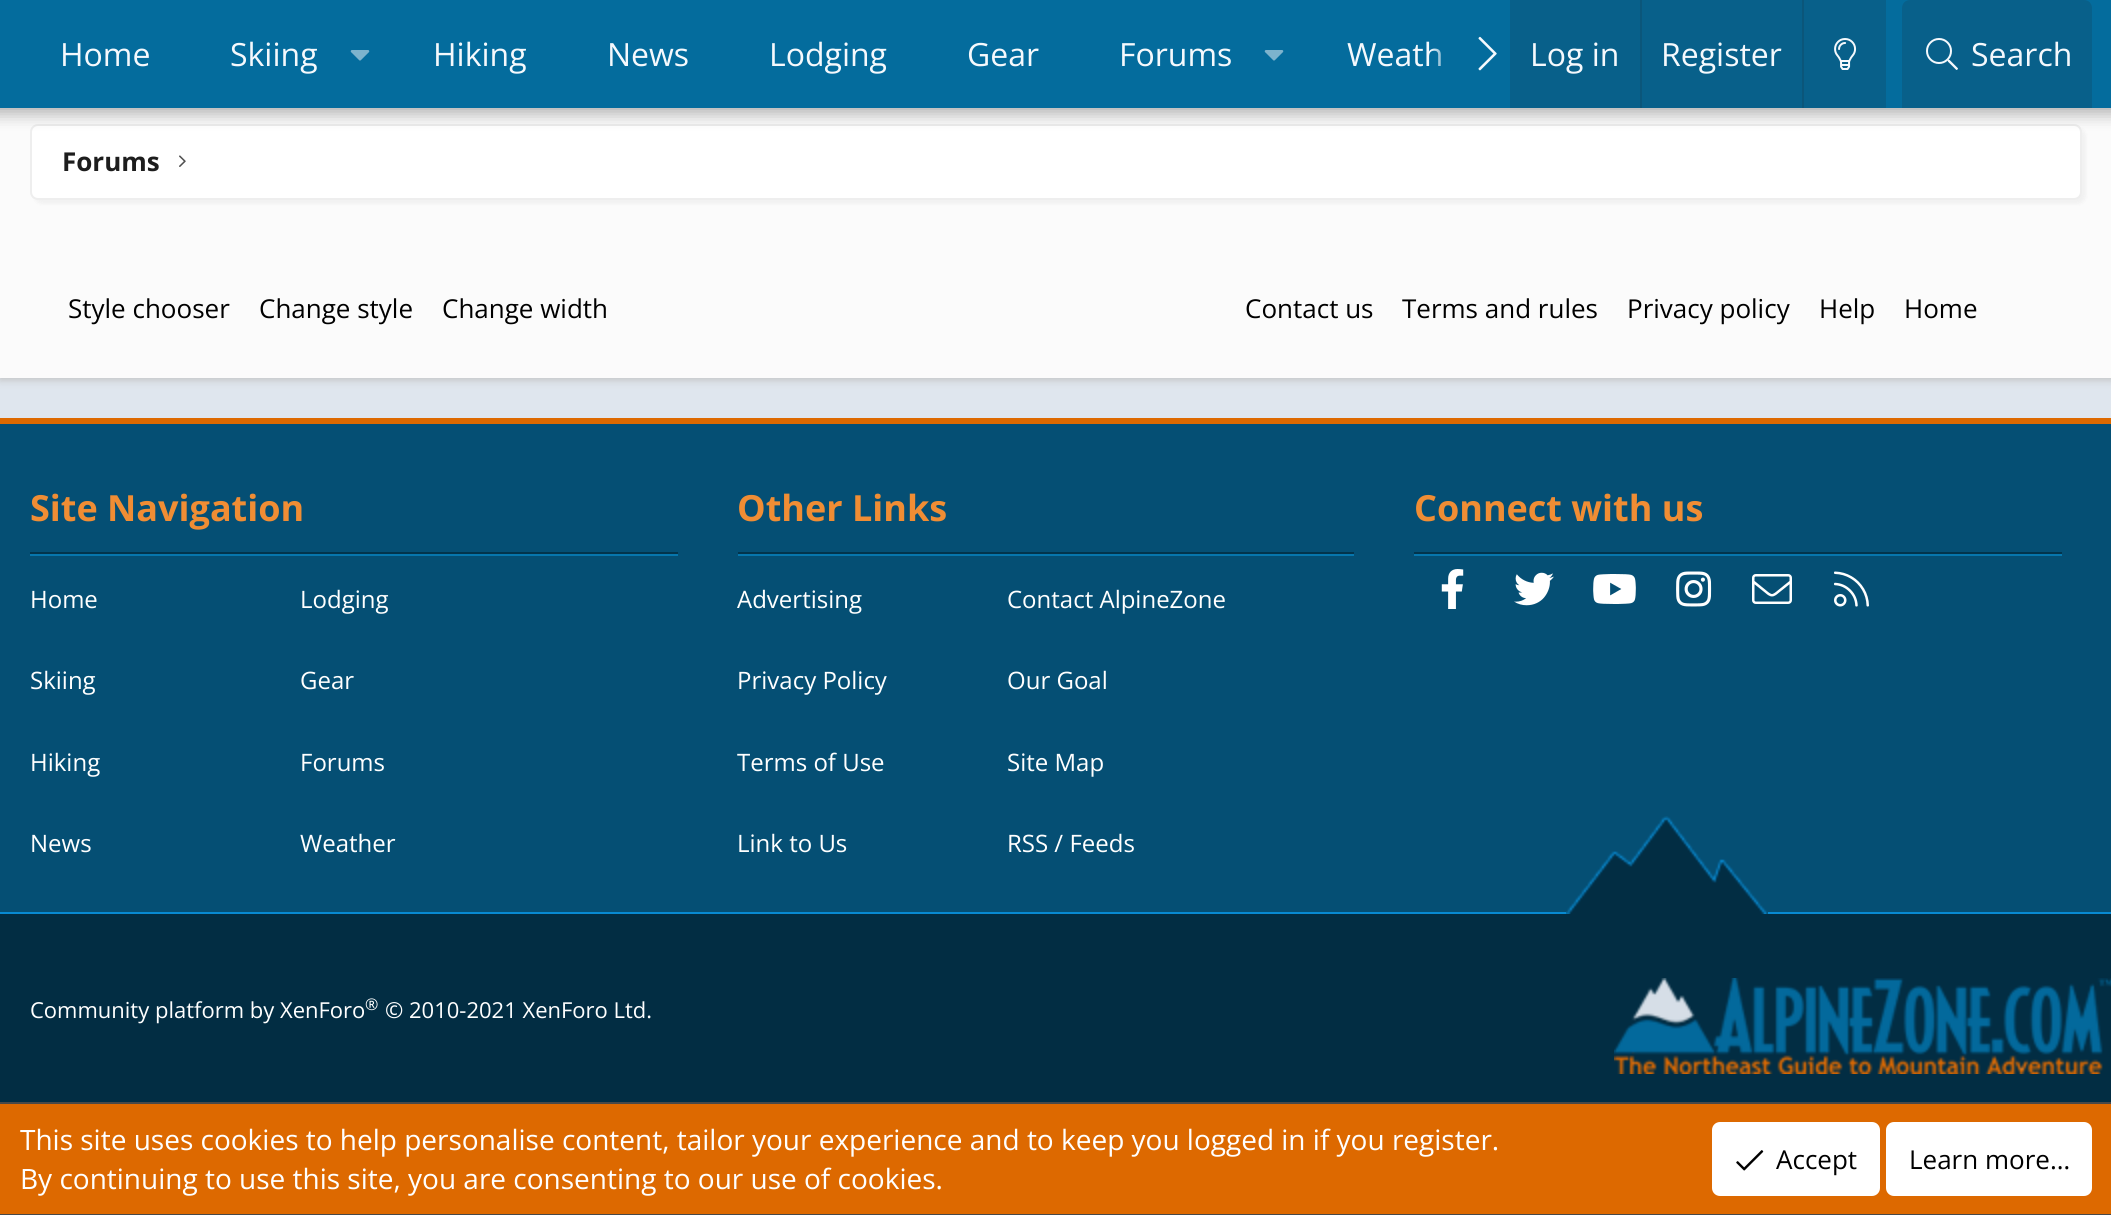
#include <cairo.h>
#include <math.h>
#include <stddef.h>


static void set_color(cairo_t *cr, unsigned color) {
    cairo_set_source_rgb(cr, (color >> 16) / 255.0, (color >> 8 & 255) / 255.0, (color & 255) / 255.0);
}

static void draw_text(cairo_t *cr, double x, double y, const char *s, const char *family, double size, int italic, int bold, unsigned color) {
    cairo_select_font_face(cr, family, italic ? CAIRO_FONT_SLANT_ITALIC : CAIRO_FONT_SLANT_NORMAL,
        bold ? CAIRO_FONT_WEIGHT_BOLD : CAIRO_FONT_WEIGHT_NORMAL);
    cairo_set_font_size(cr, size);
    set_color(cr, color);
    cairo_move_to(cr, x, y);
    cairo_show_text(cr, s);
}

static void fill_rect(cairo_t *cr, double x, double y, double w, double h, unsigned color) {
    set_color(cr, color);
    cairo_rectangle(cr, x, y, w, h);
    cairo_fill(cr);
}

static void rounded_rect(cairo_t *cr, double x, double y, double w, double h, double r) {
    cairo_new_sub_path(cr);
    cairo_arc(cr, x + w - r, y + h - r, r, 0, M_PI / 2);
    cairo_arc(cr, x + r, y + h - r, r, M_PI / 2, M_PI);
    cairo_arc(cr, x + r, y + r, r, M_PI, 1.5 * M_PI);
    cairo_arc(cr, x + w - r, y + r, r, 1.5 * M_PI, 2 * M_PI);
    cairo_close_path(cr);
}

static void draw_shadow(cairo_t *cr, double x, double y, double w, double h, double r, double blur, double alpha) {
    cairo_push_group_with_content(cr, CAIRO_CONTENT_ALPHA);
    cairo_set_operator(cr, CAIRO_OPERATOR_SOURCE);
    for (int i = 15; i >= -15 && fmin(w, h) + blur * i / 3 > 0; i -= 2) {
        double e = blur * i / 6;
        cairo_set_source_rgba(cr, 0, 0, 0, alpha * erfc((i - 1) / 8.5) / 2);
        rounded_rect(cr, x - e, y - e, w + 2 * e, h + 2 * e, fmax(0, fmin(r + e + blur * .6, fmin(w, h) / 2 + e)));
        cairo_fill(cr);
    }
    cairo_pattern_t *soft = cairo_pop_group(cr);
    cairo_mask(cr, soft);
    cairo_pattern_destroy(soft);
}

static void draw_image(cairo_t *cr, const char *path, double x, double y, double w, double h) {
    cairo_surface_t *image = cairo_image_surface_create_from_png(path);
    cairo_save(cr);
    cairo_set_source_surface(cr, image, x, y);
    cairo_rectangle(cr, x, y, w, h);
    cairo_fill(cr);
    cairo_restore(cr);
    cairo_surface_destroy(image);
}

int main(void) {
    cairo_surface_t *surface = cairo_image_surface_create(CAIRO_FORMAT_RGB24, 2111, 1215);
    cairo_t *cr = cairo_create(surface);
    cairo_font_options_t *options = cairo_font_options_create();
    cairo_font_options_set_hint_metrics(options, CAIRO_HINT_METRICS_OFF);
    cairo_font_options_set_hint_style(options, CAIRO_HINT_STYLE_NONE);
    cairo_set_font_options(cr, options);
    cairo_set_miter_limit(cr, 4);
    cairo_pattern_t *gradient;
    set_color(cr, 0xDFE6EE);
    cairo_paint(cr);
    set_color(cr, 0xC2C2C2);
    draw_shadow(cr, 0, -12, 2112, 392, 0, 4, 1);
    fill_rect(cr, 0, 108, 2111, 270, 0xFBFBFB);
    set_color(cr, 0x000000);
    draw_shadow(cr, 34, 128, 2052, 76, 8, 2, 0.04);
    set_color(cr, 0xFFFFFF);
    rounded_rect(cr, 31, 125, 2050, 74, 7);
    cairo_fill_preserve(cr);
    set_color(cr, 0xEEEEEE);
    cairo_stroke(cr);
    set_color(cr, 0x000000);
    draw_shadow(cr, -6, -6, 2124, 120, 0, 8, 0.3);
    fill_rect(cr, 0, 0, 2111, 108, 0x046C9D);
    draw_text(cr, 60, 66, "Home", "Open Sans", 32, 0, 0, 0xF5F9FD);
    draw_text(cr, 230, 66, "Skiing", "Open Sans", 32, 0, 0, 0xF5F9FD);
    draw_image(cr, "assets/img1.png", 350, 50, 20, 11);
    draw_text(cr, 433, 66, "Hiking", "Open Sans", 32, 0, 0, 0xF5F9FD);
    draw_text(cr, 607, 66, "News", "Open Sans", 32, 0, 0, 0xF5F9FD);
    draw_text(cr, 769, 66, "Lodging", "Open Sans", 32, 0, 0, 0xF5F9FD);
    draw_text(cr, 967, 66, "Gear", "Open Sans", 32, 0, 0, 0xF5F9FD);
    draw_text(cr, 1119, 66, "Forums", "Open Sans", 32, 0, 0, 0xF5F9FD);
    draw_image(cr, "assets/img1.png", 1264, 50, 20, 11);
    draw_text(cr, 1347, 66, "Weath", "Open Sans", 32, 0, 0, 0xF5F9FD);
    gradient = cairo_pattern_create_linear(1430, 54, 1510, 54);
    cairo_pattern_add_color_stop_rgba(gradient, 0, 0.016, 0.424, 0.616, 0);
    cairo_pattern_add_color_stop_rgba(gradient, 0.33, 0.016, 0.424, 0.616, 1);
    cairo_set_source(cr, gradient);
    cairo_pattern_destroy(gradient);
    cairo_rectangle(cr, 1431, 48, 10, 18);
    cairo_fill(cr);
    draw_image(cr, "assets/img2.png", 1478, 36, 19, 35);
    fill_rect(cr, 1510, 0, 376, 108, 0x08608A);
    draw_text(cr, 1530, 66, "Log in", "Open Sans", 32, 0, 0, 0xF5F9FD);
    fill_rect(cr, 1640, 0, 2, 108, 0x0B567A);
    draw_text(cr, 1661, 66, "Register", "Open Sans", 32, 0, 0, 0xF5F9FD);
    fill_rect(cr, 1802, 0, 2, 108, 0x0B567A);
    draw_image(cr, "assets/img3.png", 1834, 38, 23, 32);
    set_color(cr, 0x08608A);
    cairo_new_path(cr);
    cairo_move_to(cr, 1910, 0);
    cairo_line_to(cr, 2084, 0);
    cairo_curve_to(cr, 2088.5, 0, 2092, 3.5, 2092, 8);
    cairo_line_to(cr, 2092, 108);
    cairo_line_to(cr, 1902, 108);
    cairo_line_to(cr, 1902, 8);
    cairo_curve_to(cr, 1902, 3.5, 1905.5, 0, 1910, 0);
    cairo_close_path(cr);
    cairo_fill(cr);
    draw_image(cr, "assets/img4.png", 1926, 38, 32, 32);
    draw_text(cr, 1971, 66, "Search", "Open Sans", 32, 0, 0, 0xF5F9FD);
    draw_text(cr, 62, 171, "Forums", "Open Sans", 26, 0, 1, 0x1D1D1D);
    draw_image(cr, "assets/img5.png", 179, 155, 7, 12);
    draw_text(cr, 68, 318, "Style chooser", "Open Sans", 26, 0, 0, 0x000000);
    draw_text(cr, 259, 318, "Change style", "Open Sans", 26, 0, 0, 0x000000);
    draw_text(cr, 442, 318, "Change width", "Open Sans", 26, 0, 0, 0x000000);
    draw_text(cr, 1245, 318, "Contact us", "Open Sans", 26, 0, 0, 0x000000);
    draw_text(cr, 1402, 318, "Terms and rules", "Open Sans", 26, 0, 0, 0x000000);
    draw_text(cr, 1627, 318, "Privacy policy", "Open Sans", 26, 0, 0, 0x000000);
    draw_text(cr, 1819, 318, "Help", "Open Sans", 26, 0, 0, 0x000000);
    draw_text(cr, 1904, 318, "Home", "Open Sans", 26, 0, 0, 0x000000);
    fill_rect(cr, 0, 424, 2111, 488, 0x054F74);
    fill_rect(cr, 0, 418, 2111, 6, 0xDD6900);
    fill_rect(cr, 0, 912, 2111, 2, 0x088AD2);
    fill_rect(cr, 30, 552, 648, 2, 0x03344C);
    fill_rect(cr, 30, 554, 648, 2, 0x0776AD);
    draw_text(cr, 30, 521, "Site Navigation", "Open Sans", 36, 0, 1, 0xF08D34);
    draw_text(cr, 30, 608, "Home", "Open Sans", 24, 0, 0, 0xFFFFFF);
    draw_text(cr, 300, 608, "Lodging", "Open Sans", 24, 0, 0, 0xFFFFFF);
    draw_text(cr, 30, 689, "Skiing", "Open Sans", 24, 0, 0, 0xFFFFFF);
    draw_text(cr, 300, 689, "Gear", "Open Sans", 24, 0, 0, 0xFFFFFF);
    draw_text(cr, 30, 771, "Hiking", "Open Sans", 24, 0, 0, 0xFFFFFF);
    draw_text(cr, 300, 771, "Forums", "Open Sans", 24, 0, 0, 0xFFFFFF);
    draw_text(cr, 30, 852, "News", "Open Sans", 24, 0, 0, 0xFFFFFF);
    draw_text(cr, 300, 852, "Weather", "Open Sans", 24, 0, 0, 0xFFFFFF);
    fill_rect(cr, 738, 552, 616, 2, 0x03344C);
    fill_rect(cr, 738, 554, 616, 2, 0x0776AD);
    draw_text(cr, 737, 521, "Other Links", "Open Sans", 36, 0, 1, 0xF08D34);
    draw_text(cr, 737, 608, "Advertising", "Open Sans", 24, 0, 0, 0xFFFFFF);
    draw_text(cr, 1007, 608, "Contact AlpineZone", "Open Sans", 24, 0, 0, 0xFFFFFF);
    draw_text(cr, 737, 689, "Privacy Policy", "Open Sans", 24, 0, 0, 0xFFFFFF);
    draw_text(cr, 1007, 689, "Our Goal", "Open Sans", 24, 0, 0, 0xFFFFFF);
    draw_text(cr, 737, 771, "Terms of Use", "Open Sans", 24, 0, 0, 0xFFFFFF);
    draw_text(cr, 1007, 771, "Site Map", "Open Sans", 24, 0, 0, 0xFFFFFF);
    draw_text(cr, 737, 852, "Link to Us", "Open Sans", 24, 0, 0, 0xFFFFFF);
    draw_text(cr, 1007, 852, "RSS / Feeds", "Open Sans", 24, 0, 0, 0xFFFFFF);
    fill_rect(cr, 1414, 552, 648, 2, 0x03344C);
    fill_rect(cr, 1414, 554, 648, 2, 0x0776AD);
    draw_text(cr, 1414, 521, "Connect with us", "Open Sans", 36, 0, 1, 0xF08D34);
    draw_image(cr, "assets/img6.png", 1441, 569, 23, 40);
    draw_image(cr, "assets/img7.png", 1514, 572, 40, 34);
    draw_image(cr, "assets/img8.png", 1593, 574, 43, 30);
    draw_image(cr, "assets/img9.png", 1676, 571, 36, 36);
    draw_image(cr, "assets/img10.png", 1752, 574, 40, 30);
    draw_image(cr, "assets/img11.png", 1834, 571, 35, 36);
    draw_image(cr, "assets/img12.png", 1566, 816, 202, 98);
    fill_rect(cr, 0, 914, 2111, 188, 0x022D43);
    draw_text(cr, 30, 1018, "Community platform by XenForo", "Open Sans", 22, 0, 0, 0xFFFFFF);
    draw_text(cr, 365, 1010, "®", "Open Sans", 16, 0, 0, 0xFFFFFF);
    draw_text(cr, 385, 1018, "© 2010-2021 XenForo Ltd.", "Open Sans", 22, 0, 0, 0xFFFFFF);
    draw_image(cr, "assets/img13.png", 1614, 978, 497, 96);
    fill_rect(cr, 0, 1104, 2111, 110, 0xDD6900);
    fill_rect(cr, 0, 1102, 2111, 2, 0x484848);
    fill_rect(cr, 0, 1214, 2111, 1, 0x484848);
    draw_text(cr, 20, 1150, "This site uses cookies to help personalise content, tailor your experience and to keep you logged in if you register.", "Open Sans", 28, 0, 0, 0xFFFFFF);
    draw_text(cr, 20, 1189, "By continuing to use this site, you are consenting to our use of cookies.", "Open Sans", 28, 0, 0, 0xFFFFFF);
    rounded_rect(cr, 1713, 1123, 166, 72, 7);
    cairo_fill_preserve(cr);
    cairo_stroke(cr);
    draw_image(cr, "assets/img14.png", 1736, 1150, 28, 21);
    draw_text(cr, 1776, 1169, "Accept", "Open Sans", 26, 0, 0, 0x000000);
    set_color(cr, 0xFFFFFF);
    rounded_rect(cr, 1887, 1123, 204, 72, 7);
    cairo_fill_preserve(cr);
    cairo_stroke(cr);
    draw_text(cr, 1909, 1169, "Learn more…", "Open Sans", 26, 0, 0, 0x000000);
    cairo_surface_write_to_png(surface, "output.png");
    cairo_font_options_destroy(options);
    cairo_destroy(cr);
    cairo_surface_destroy(surface);
    return 0;
}
